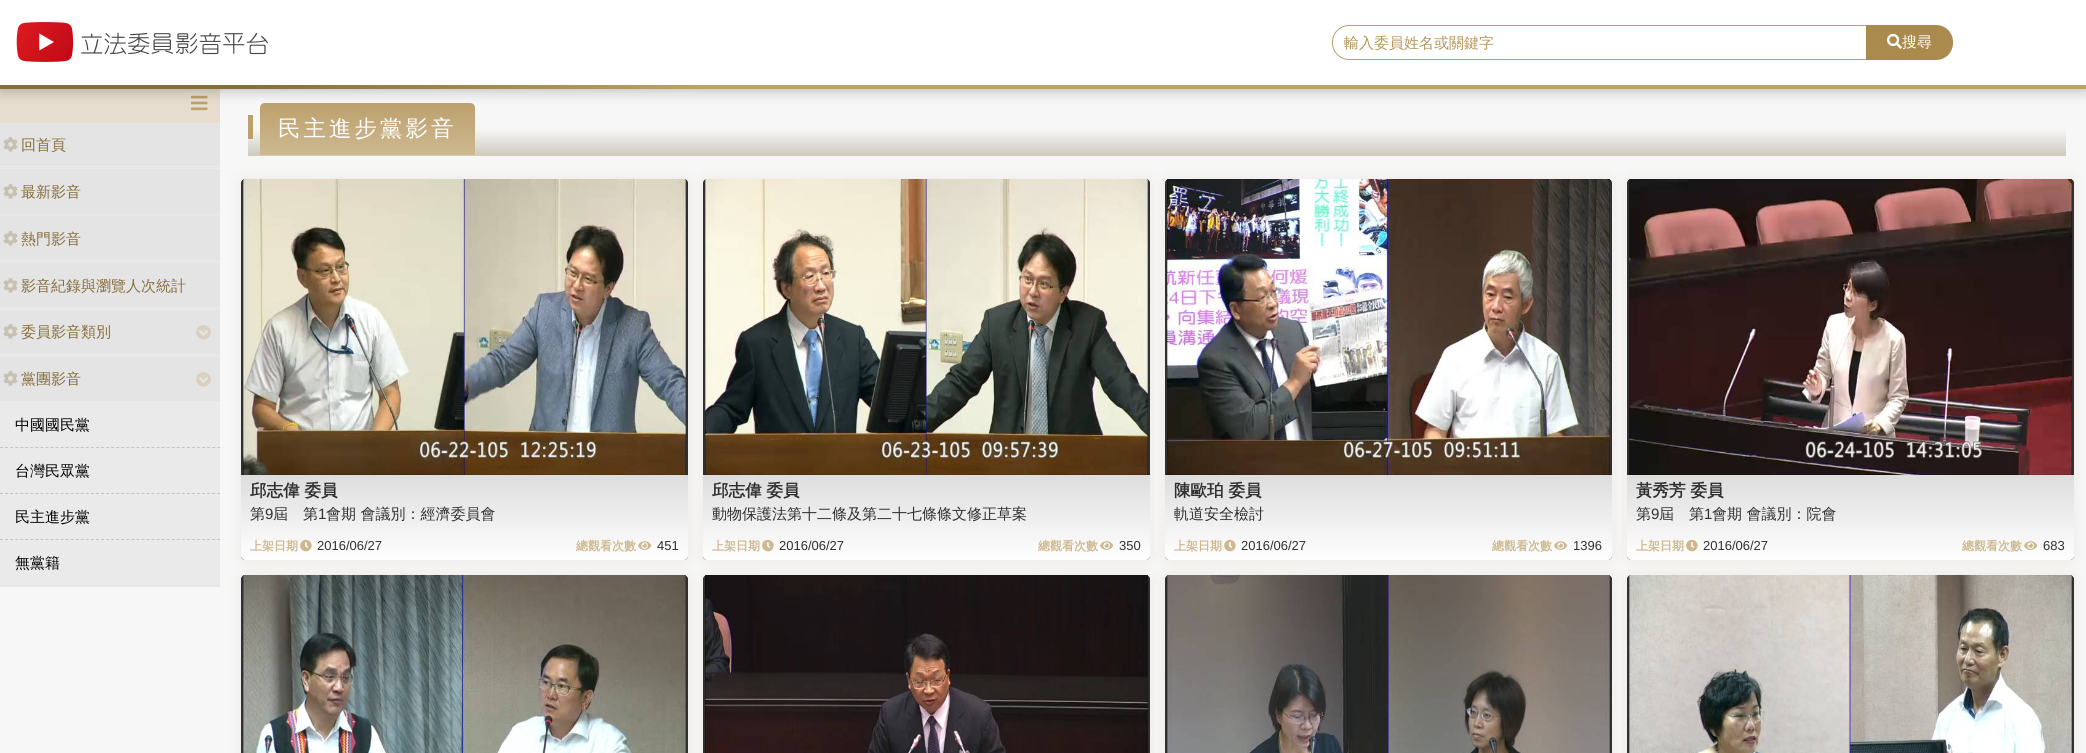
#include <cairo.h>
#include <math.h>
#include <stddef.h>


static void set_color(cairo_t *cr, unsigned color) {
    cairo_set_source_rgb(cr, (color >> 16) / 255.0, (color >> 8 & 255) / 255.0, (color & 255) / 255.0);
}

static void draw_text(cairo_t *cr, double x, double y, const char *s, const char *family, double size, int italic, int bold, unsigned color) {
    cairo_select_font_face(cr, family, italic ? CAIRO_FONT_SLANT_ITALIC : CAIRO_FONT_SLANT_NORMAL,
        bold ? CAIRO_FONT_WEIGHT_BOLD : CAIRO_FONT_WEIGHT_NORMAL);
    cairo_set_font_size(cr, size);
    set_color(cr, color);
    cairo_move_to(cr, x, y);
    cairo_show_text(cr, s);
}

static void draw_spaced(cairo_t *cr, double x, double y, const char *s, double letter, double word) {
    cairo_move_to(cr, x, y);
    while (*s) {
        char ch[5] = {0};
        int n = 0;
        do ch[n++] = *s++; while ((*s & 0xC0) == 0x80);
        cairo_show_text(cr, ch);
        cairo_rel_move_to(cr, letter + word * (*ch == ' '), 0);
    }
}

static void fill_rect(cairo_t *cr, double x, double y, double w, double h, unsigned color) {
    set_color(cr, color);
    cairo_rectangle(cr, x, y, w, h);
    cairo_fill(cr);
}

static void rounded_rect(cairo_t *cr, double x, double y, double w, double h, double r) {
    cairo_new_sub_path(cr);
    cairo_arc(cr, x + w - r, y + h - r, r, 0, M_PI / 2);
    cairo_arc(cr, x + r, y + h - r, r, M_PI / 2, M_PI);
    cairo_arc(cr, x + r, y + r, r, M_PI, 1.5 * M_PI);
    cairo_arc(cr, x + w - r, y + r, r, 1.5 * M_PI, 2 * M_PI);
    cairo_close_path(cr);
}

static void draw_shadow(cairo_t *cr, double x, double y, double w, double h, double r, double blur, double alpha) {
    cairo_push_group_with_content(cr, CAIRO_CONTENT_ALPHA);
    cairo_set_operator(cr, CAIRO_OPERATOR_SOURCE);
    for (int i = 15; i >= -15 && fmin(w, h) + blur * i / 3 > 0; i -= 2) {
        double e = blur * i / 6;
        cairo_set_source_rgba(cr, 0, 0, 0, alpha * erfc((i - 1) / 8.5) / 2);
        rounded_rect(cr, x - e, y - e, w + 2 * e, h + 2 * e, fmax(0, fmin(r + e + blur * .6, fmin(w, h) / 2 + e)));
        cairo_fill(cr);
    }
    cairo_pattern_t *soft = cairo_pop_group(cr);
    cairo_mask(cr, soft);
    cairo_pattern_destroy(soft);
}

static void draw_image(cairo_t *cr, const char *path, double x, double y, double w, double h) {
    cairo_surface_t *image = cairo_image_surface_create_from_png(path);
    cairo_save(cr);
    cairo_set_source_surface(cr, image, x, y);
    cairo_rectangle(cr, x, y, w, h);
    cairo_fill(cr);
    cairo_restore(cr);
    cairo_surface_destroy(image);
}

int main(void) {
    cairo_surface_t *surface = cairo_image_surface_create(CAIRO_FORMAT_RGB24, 2086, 753);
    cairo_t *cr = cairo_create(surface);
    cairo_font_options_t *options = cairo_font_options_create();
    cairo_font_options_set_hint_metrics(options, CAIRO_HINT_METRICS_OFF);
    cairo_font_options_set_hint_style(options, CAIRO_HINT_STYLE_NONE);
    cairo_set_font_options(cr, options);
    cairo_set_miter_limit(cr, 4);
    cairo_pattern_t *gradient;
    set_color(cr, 0xF7F7F7);
    cairo_paint(cr);
    fill_rect(cr, 0, 89, 220, 34, 0xE6DDCE);
    draw_image(cr, "assets/img3.png", 191, 95, 17, 16);
    gradient = cairo_pattern_create_linear(1157, 103, 1157, 155);
    cairo_pattern_add_color_stop_rgba(gradient, 0.5, 0.969, 0.969, 0.969, 1);
    cairo_pattern_add_color_stop_rgba(gradient, 1, 0.816, 0.796, 0.753, 1);
    cairo_set_source(cr, gradient);
    cairo_pattern_destroy(gradient);
    cairo_rectangle(cr, 248, 130, 1818, 25);
    cairo_fill(cr);
    gradient = cairo_pattern_create_linear(368, 103, 368, 155);
    cairo_pattern_add_color_stop_rgba(gradient, 0, 0.741, 0.631, 0.427, 1);
    cairo_pattern_add_color_stop_rgba(gradient, 1, 0.804, 0.722, 0.565, 1);
    cairo_set_source(cr, gradient);
    cairo_pattern_destroy(gradient);
    cairo_new_path(cr);
    cairo_move_to(cr, 265, 103);
    cairo_line_to(cr, 470, 103);
    cairo_curve_to(cr, 473, 103, 475, 105, 475, 108);
    cairo_line_to(cr, 475, 155);
    cairo_line_to(cr, 260, 155);
    cairo_line_to(cr, 260, 108);
    cairo_curve_to(cr, 260, 105, 262, 103, 265, 103);
    cairo_close_path(cr);
    cairo_fill(cr);
    set_color(cr, 0x000000);
    draw_shadow(cr, 0, 0, 2086, 89, 0, 7.5, 0.3);
    gradient = cairo_pattern_create_linear(0, 45, 2086, 44);
    cairo_pattern_add_color_stop_rgba(gradient, 0.12, 0.529, 0.431, 0.239, 1);
    cairo_pattern_add_color_stop_rgba(gradient, 0.34, 0.741, 0.631, 0.427, 1);
    cairo_set_source(cr, gradient);
    cairo_pattern_destroy(gradient);
    cairo_rectangle(cr, 0, 85, 2086, 4);
    cairo_fill(cr);
    fill_rect(cr, 0, 0, 2086, 85, 0xFFFFFF);
    draw_image(cr, "assets/img1.png", 16, 22, 252, 40);
    cairo_new_path(cr);
    cairo_move_to(cr, 1349, 25.5);
    cairo_line_to(cr, 1866.5, 25.5);
    cairo_line_to(cr, 1866.5, 59.5);
    cairo_line_to(cr, 1349, 59.5);
    cairo_curve_to(cr, 1340, 59.5, 1332.5, 52, 1332.5, 43);
    cairo_line_to(cr, 1332.5, 42);
    cairo_curve_to(cr, 1332.5, 33, 1340, 25.5, 1349, 25.5);
    cairo_close_path(cr);
    set_color(cr, 0xBDA16D);
    cairo_set_line_width(cr, 1);
    cairo_stroke(cr);
    draw_text(cr, 1344, 48, "輸入委員姓名或關鍵字", "WenQuanYi Zen Hei Medium", 15, 0, 0, 0xB5965C);
    set_color(cr, 0xAA8A4D);
    cairo_new_path(cr);
    cairo_move_to(cr, 1866, 25);
    cairo_line_to(cr, 1936, 25);
    cairo_curve_to(cr, 1945.5, 25, 1953, 32.5, 1953, 42);
    cairo_line_to(cr, 1953, 43);
    cairo_curve_to(cr, 1953, 52.5, 1945.5, 60, 1936, 60);
    cairo_line_to(cr, 1866, 60);
    cairo_close_path(cr);
    cairo_fill(cr);
    draw_image(cr, "assets/img2.png", 1887, 33, 15, 16);
    draw_text(cr, 1902, 47, "搜尋", "WenQuanYi Zen Hei Medium", 15, 0, 0, 0xFFFFFF);
    fill_rect(cr, 0, 166, 220, 421, 0xEAEAEA);
    fill_rect(cr, 0, 167, 220, 1, 0xE5E5E5);
    fill_rect(cr, 0, 123, 220, 43, 0xE4E4E4);
    draw_image(cr, "assets/img4.png", 3, 137, 15, 15);
    draw_text(cr, 21, 150, "回首頁", "WenQuanYi Zen Hei Medium", 15, 0, 0, 0x876E3D);
    fill_rect(cr, 0, 214, 220, 1, 0xE5E5E5);
    fill_rect(cr, 0, 169, 220, 44, 0xE4E4E4);
    draw_image(cr, "assets/img4.png", 3, 184, 15, 15);
    draw_text(cr, 21, 197, "最新影音", "WenQuanYi Zen Hei Medium", 15, 0, 0, 0x876E3D);
    fill_rect(cr, 0, 261, 220, 1, 0xE5E5E5);
    fill_rect(cr, 0, 216, 220, 44, 0xE4E4E4);
    draw_image(cr, "assets/img4.png", 3, 231, 15, 15);
    draw_text(cr, 21, 244, "熱門影音", "WenQuanYi Zen Hei Medium", 15, 0, 0, 0x876E3D);
    fill_rect(cr, 0, 308, 220, 1, 0xE5E5E5);
    fill_rect(cr, 0, 263, 220, 44, 0xE4E4E4);
    draw_image(cr, "assets/img4.png", 3, 278, 15, 15);
    draw_text(cr, 21, 291, "影音紀錄與瀏覽人次統計", "WenQuanYi Zen Hei Medium", 15, 0, 0, 0x876E3D);
    fill_rect(cr, 0, 355, 220, 1, 0xE5E5E5);
    fill_rect(cr, 0, 310, 220, 44, 0xE4E4E4);
    draw_image(cr, "assets/img4.png", 3, 324, 15, 15);
    draw_text(cr, 21, 337, "委員影音類別", "WenQuanYi Zen Hei Medium", 15, 0, 0, 0x876E3D);
    draw_image(cr, "assets/img5.png", 196, 325, 15, 15);
    fill_rect(cr, 0, 585, 220, 1, 0xE5E5E5);
    fill_rect(cr, 0, 357, 220, 44, 0xE4E4E4);
    draw_image(cr, "assets/img4.png", 3, 371, 15, 15);
    draw_text(cr, 21, 384, "黨團影音", "WenQuanYi Zen Hei Medium", 15, 0, 0, 0x876E3D);
    draw_image(cr, "assets/img5.png", 196, 372, 15, 15);
    cairo_new_path(cr);
    cairo_move_to(cr, 0, 447.5);
    cairo_line_to(cr, 220, 447.5);
    set_color(cr, 0xC4C4C4);
    cairo_set_dash(cr, (double[]){3, 2.05}, 2, 0);
    cairo_stroke(cr);
    draw_text(cr, 15, 430, "中國國民黨", "WenQuanYi Zen Hei Medium", 15, 0, 0, 0x000000);
    cairo_new_path(cr);
    cairo_move_to(cr, 0, 493.5);
    cairo_line_to(cr, 220, 493.5);
    set_color(cr, 0xC4C4C4);
    cairo_stroke(cr);
    draw_text(cr, 15, 476, "台灣民眾黨", "WenQuanYi Zen Hei Medium", 15, 0, 0, 0x000000);
    cairo_new_path(cr);
    cairo_move_to(cr, 0, 539.5);
    cairo_line_to(cr, 220, 539.5);
    set_color(cr, 0xC4C4C4);
    cairo_stroke(cr);
    draw_text(cr, 15, 522, "民主進步黨", "WenQuanYi Zen Hei Medium", 15, 0, 0, 0x000000);
    draw_text(cr, 15, 568, "無黨籍", "WenQuanYi Zen Hei Medium", 15, 0, 0, 0x000000);
    fill_rect(cr, 248, 155, 1818, 1, 0xDACCB2);
    fill_rect(cr, 248, 115, 5, 24, 0xBDA16D);
    cairo_set_font_size(cr, 22.5);
    set_color(cr, 0xFFFFFF);
    draw_spaced(cr, 278, 136, "民主進步黨影音", 3, 0);
    set_color(cr, 0x876E3D);
    draw_shadow(cr, 241, 179, 447, 381, 4, 7, 0.1);
    set_color(cr, 0x303030);
    rounded_rect(cr, 241, 179, 447, 381, 4);
    cairo_fill(cr);
    draw_image(cr, "assets/img6.png", 243, 179, 443, 296);
    cairo_set_source_rgba(cr, 0, 0, 0, 0.12);
    cairo_rectangle(cr, 241, 474, 447, 1);
    cairo_fill(cr);
    gradient = cairo_pattern_create_linear(465, 475, 465, 560);
    cairo_pattern_add_color_stop_rgba(gradient, 0, 0.867, 0.867, 0.867, 1);
    cairo_pattern_add_color_stop_rgba(gradient, 1, 1, 1, 1, 1);
    cairo_set_source(cr, gradient);
    cairo_pattern_destroy(gradient);
    cairo_new_path(cr);
    cairo_move_to(cr, 241, 475);
    cairo_line_to(cr, 688, 475);
    cairo_line_to(cr, 688, 556);
    cairo_curve_to(cr, 688, 558, 686, 560, 684, 560);
    cairo_line_to(cr, 245, 560);
    cairo_curve_to(cr, 243, 560, 241, 558, 241, 556);
    cairo_close_path(cr);
    cairo_fill(cr);
    draw_text(cr, 250, 496, "邱志偉 委員", "WenQuanYi Zen Hei", 16.5, 0, 1, 0x303030);
    draw_text(cr, 250, 519, "第", "WenQuanYi Zen Hei Medium", 15, 0, 0, 0x303030);
    draw_text(cr, 265, 519, "9", "Liberation Sans", 15, 0, 0, 0x303030);
    draw_text(cr, 273, 519, "屆　第", "WenQuanYi Zen Hei Medium", 15, 0, 0, 0x303030);
    draw_text(cr, 318, 519, "1", "Liberation Sans", 15, 0, 0, 0x303030);
    draw_text(cr, 326, 519, "會期 會議別：經濟委員會", "WenQuanYi Zen Hei Medium", 15, 0, 0, 0x303030);
    draw_image(cr, "assets/img7.png", 300, 539, 12, 13);
    draw_text(cr, 250, 550, "上架日期", "WenQuanYi Zen Hei", 12, 0, 1, 0xCDB890);
    draw_text(cr, 317, 550, "2016/06/27", "Liberation Sans", 13, 0, 0, 0x303030);
    draw_image(cr, "assets/img8.png", 638, 541, 14, 9);
    draw_text(cr, 576, 550, "總觀看次數", "WenQuanYi Zen Hei", 12, 0, 1, 0xCDB890);
    draw_text(cr, 657, 550, "451", "Liberation Sans", 13, 0, 0, 0x303030);
    set_color(cr, 0x876E3D);
    draw_shadow(cr, 703, 179, 447, 381, 4, 7, 0.1);
    set_color(cr, 0x303030);
    rounded_rect(cr, 703, 179, 447, 381, 4);
    cairo_fill(cr);
    draw_image(cr, "assets/img9.png", 705, 179, 443, 296);
    cairo_set_source_rgba(cr, 0, 0, 0, 0.12);
    cairo_rectangle(cr, 703, 474, 447, 1);
    cairo_fill(cr);
    gradient = cairo_pattern_create_linear(927, 475, 927, 560);
    cairo_pattern_add_color_stop_rgba(gradient, 0, 0.867, 0.867, 0.867, 1);
    cairo_pattern_add_color_stop_rgba(gradient, 1, 1, 1, 1, 1);
    cairo_set_source(cr, gradient);
    cairo_pattern_destroy(gradient);
    cairo_new_path(cr);
    cairo_move_to(cr, 703, 475);
    cairo_line_to(cr, 1150, 475);
    cairo_line_to(cr, 1150, 556);
    cairo_curve_to(cr, 1150, 558, 1148, 560, 1146, 560);
    cairo_line_to(cr, 707, 560);
    cairo_curve_to(cr, 705, 560, 703, 558, 703, 556);
    cairo_close_path(cr);
    cairo_fill(cr);
    draw_text(cr, 712, 496, "邱志偉 委員", "WenQuanYi Zen Hei", 16.5, 0, 1, 0x303030);
    draw_text(cr, 712, 519, "動物保護法第十二條及第二十七條條文修正草案", "WenQuanYi Zen Hei Medium", 15, 0, 0, 0x303030);
    draw_image(cr, "assets/img7.png", 762, 539, 12, 13);
    draw_text(cr, 712, 550, "上架日期", "WenQuanYi Zen Hei", 12, 0, 1, 0xCDB890);
    draw_text(cr, 779, 550, "2016/06/27", "Liberation Sans", 13, 0, 0, 0x303030);
    draw_image(cr, "assets/img8.png", 1100, 541, 14, 9);
    draw_text(cr, 1038, 550, "總觀看次數", "WenQuanYi Zen Hei", 12, 0, 1, 0xCDB890);
    draw_text(cr, 1119, 550, "350", "Liberation Sans", 13, 0, 0, 0x303030);
    set_color(cr, 0x876E3D);
    draw_shadow(cr, 1165, 179, 447, 381, 4, 7, 0.1);
    set_color(cr, 0x303030);
    rounded_rect(cr, 1165, 179, 447, 381, 4);
    cairo_fill(cr);
    draw_image(cr, "assets/img10.png", 1167, 179, 443, 296);
    cairo_set_source_rgba(cr, 0, 0, 0, 0.12);
    cairo_rectangle(cr, 1165, 474, 447, 1);
    cairo_fill(cr);
    gradient = cairo_pattern_create_linear(1389, 475, 1389, 560);
    cairo_pattern_add_color_stop_rgba(gradient, 0, 0.867, 0.867, 0.867, 1);
    cairo_pattern_add_color_stop_rgba(gradient, 1, 1, 1, 1, 1);
    cairo_set_source(cr, gradient);
    cairo_pattern_destroy(gradient);
    cairo_new_path(cr);
    cairo_move_to(cr, 1165, 475);
    cairo_line_to(cr, 1612, 475);
    cairo_line_to(cr, 1612, 556);
    cairo_curve_to(cr, 1612, 558, 1610, 560, 1608, 560);
    cairo_line_to(cr, 1169, 560);
    cairo_curve_to(cr, 1167, 560, 1165, 558, 1165, 556);
    cairo_close_path(cr);
    cairo_fill(cr);
    draw_text(cr, 1174, 496, "陳歐珀 委員", "WenQuanYi Zen Hei", 16.5, 0, 1, 0x303030);
    draw_text(cr, 1174, 519, "軌道安全檢討", "WenQuanYi Zen Hei Medium", 15, 0, 0, 0x303030);
    draw_image(cr, "assets/img7.png", 1224, 539, 12, 13);
    draw_text(cr, 1174, 550, "上架日期", "WenQuanYi Zen Hei", 12, 0, 1, 0xCDB890);
    draw_text(cr, 1241, 550, "2016/06/27", "Liberation Sans", 13, 0, 0, 0x303030);
    draw_image(cr, "assets/img8.png", 1554, 541, 14, 9);
    draw_text(cr, 1492, 550, "總觀看次數", "WenQuanYi Zen Hei", 12, 0, 1, 0xCDB890);
    draw_text(cr, 1573, 550, "1396", "Liberation Sans", 13, 0, 0, 0x303030);
    set_color(cr, 0x876E3D);
    draw_shadow(cr, 1627, 179, 447, 381, 4, 7, 0.1);
    set_color(cr, 0x303030);
    rounded_rect(cr, 1627, 179, 447, 381, 4);
    cairo_fill(cr);
    draw_image(cr, "assets/img11.png", 1629, 179, 443, 296);
    cairo_set_source_rgba(cr, 0, 0, 0, 0.12);
    cairo_rectangle(cr, 1627, 474, 447, 1);
    cairo_fill(cr);
    gradient = cairo_pattern_create_linear(1851, 475, 1851, 560);
    cairo_pattern_add_color_stop_rgba(gradient, 0, 0.867, 0.867, 0.867, 1);
    cairo_pattern_add_color_stop_rgba(gradient, 1, 1, 1, 1, 1);
    cairo_set_source(cr, gradient);
    cairo_pattern_destroy(gradient);
    cairo_new_path(cr);
    cairo_move_to(cr, 1627, 475);
    cairo_line_to(cr, 2074, 475);
    cairo_line_to(cr, 2074, 556);
    cairo_curve_to(cr, 2074, 558, 2072, 560, 2070, 560);
    cairo_line_to(cr, 1631, 560);
    cairo_curve_to(cr, 1629, 560, 1627, 558, 1627, 556);
    cairo_close_path(cr);
    cairo_fill(cr);
    draw_text(cr, 1636, 496, "黃秀芳 委員", "WenQuanYi Zen Hei", 16.5, 0, 1, 0x303030);
    draw_text(cr, 1636, 519, "第", "WenQuanYi Zen Hei Medium", 15, 0, 0, 0x303030);
    draw_text(cr, 1651, 519, "9", "Liberation Sans", 15, 0, 0, 0x303030);
    draw_text(cr, 1659, 519, "屆　第", "WenQuanYi Zen Hei Medium", 15, 0, 0, 0x303030);
    draw_text(cr, 1704, 519, "1", "Liberation Sans", 15, 0, 0, 0x303030);
    draw_text(cr, 1712, 519, "會期 會議別：院會", "WenQuanYi Zen Hei Medium", 15, 0, 0, 0x303030);
    draw_image(cr, "assets/img7.png", 1686, 539, 12, 13);
    draw_text(cr, 1636, 550, "上架日期", "WenQuanYi Zen Hei", 12, 0, 1, 0xCDB890);
    draw_text(cr, 1703, 550, "2016/06/27", "Liberation Sans", 13, 0, 0, 0x303030);
    draw_image(cr, "assets/img8.png", 2024, 541, 14, 9);
    draw_text(cr, 1962, 550, "總觀看次數", "WenQuanYi Zen Hei", 12, 0, 1, 0xCDB890);
    draw_text(cr, 2043, 550, "683", "Liberation Sans", 13, 0, 0, 0x303030);
    set_color(cr, 0x876E3D);
    draw_shadow(cr, 241, 575, 447, 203, 4, 7, 0.1);
    set_color(cr, 0x303030);
    cairo_new_path(cr);
    cairo_move_to(cr, 245, 575);
    cairo_line_to(cr, 684, 575);
    cairo_curve_to(cr, 686, 575, 688, 577, 688, 579);
    cairo_line_to(cr, 688, 753);
    cairo_line_to(cr, 241, 753);
    cairo_line_to(cr, 241, 579);
    cairo_curve_to(cr, 241, 577, 243, 575, 245, 575);
    cairo_close_path(cr);
    cairo_fill(cr);
    draw_image(cr, "assets/img12.png", 243, 575, 443, 178);
    set_color(cr, 0x876E3D);
    draw_shadow(cr, 703, 575, 447, 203, 4, 7, 0.1);
    set_color(cr, 0x303030);
    cairo_new_path(cr);
    cairo_move_to(cr, 707, 575);
    cairo_line_to(cr, 1146, 575);
    cairo_curve_to(cr, 1148, 575, 1150, 577, 1150, 579);
    cairo_line_to(cr, 1150, 753);
    cairo_line_to(cr, 703, 753);
    cairo_line_to(cr, 703, 579);
    cairo_curve_to(cr, 703, 577, 705, 575, 707, 575);
    cairo_close_path(cr);
    cairo_fill(cr);
    draw_image(cr, "assets/img13.png", 705, 575, 443, 178);
    set_color(cr, 0x876E3D);
    draw_shadow(cr, 1165, 575, 447, 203, 4, 7, 0.1);
    set_color(cr, 0x303030);
    cairo_new_path(cr);
    cairo_move_to(cr, 1169, 575);
    cairo_line_to(cr, 1608, 575);
    cairo_curve_to(cr, 1610, 575, 1612, 577, 1612, 579);
    cairo_line_to(cr, 1612, 753);
    cairo_line_to(cr, 1165, 753);
    cairo_line_to(cr, 1165, 579);
    cairo_curve_to(cr, 1165, 577, 1167, 575, 1169, 575);
    cairo_close_path(cr);
    cairo_fill(cr);
    draw_image(cr, "assets/img14.png", 1167, 575, 443, 178);
    set_color(cr, 0x876E3D);
    draw_shadow(cr, 1627, 575, 447, 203, 4, 7, 0.1);
    set_color(cr, 0x303030);
    cairo_new_path(cr);
    cairo_move_to(cr, 1631, 575);
    cairo_line_to(cr, 2070, 575);
    cairo_curve_to(cr, 2072, 575, 2074, 577, 2074, 579);
    cairo_line_to(cr, 2074, 753);
    cairo_line_to(cr, 1627, 753);
    cairo_line_to(cr, 1627, 579);
    cairo_curve_to(cr, 1627, 577, 1629, 575, 1631, 575);
    cairo_close_path(cr);
    cairo_fill(cr);
    draw_image(cr, "assets/img15.png", 1629, 575, 443, 178);
    cairo_surface_write_to_png(surface, "output.png");
    cairo_font_options_destroy(options);
    cairo_destroy(cr);
    cairo_surface_destroy(surface);
    return 0;
}
